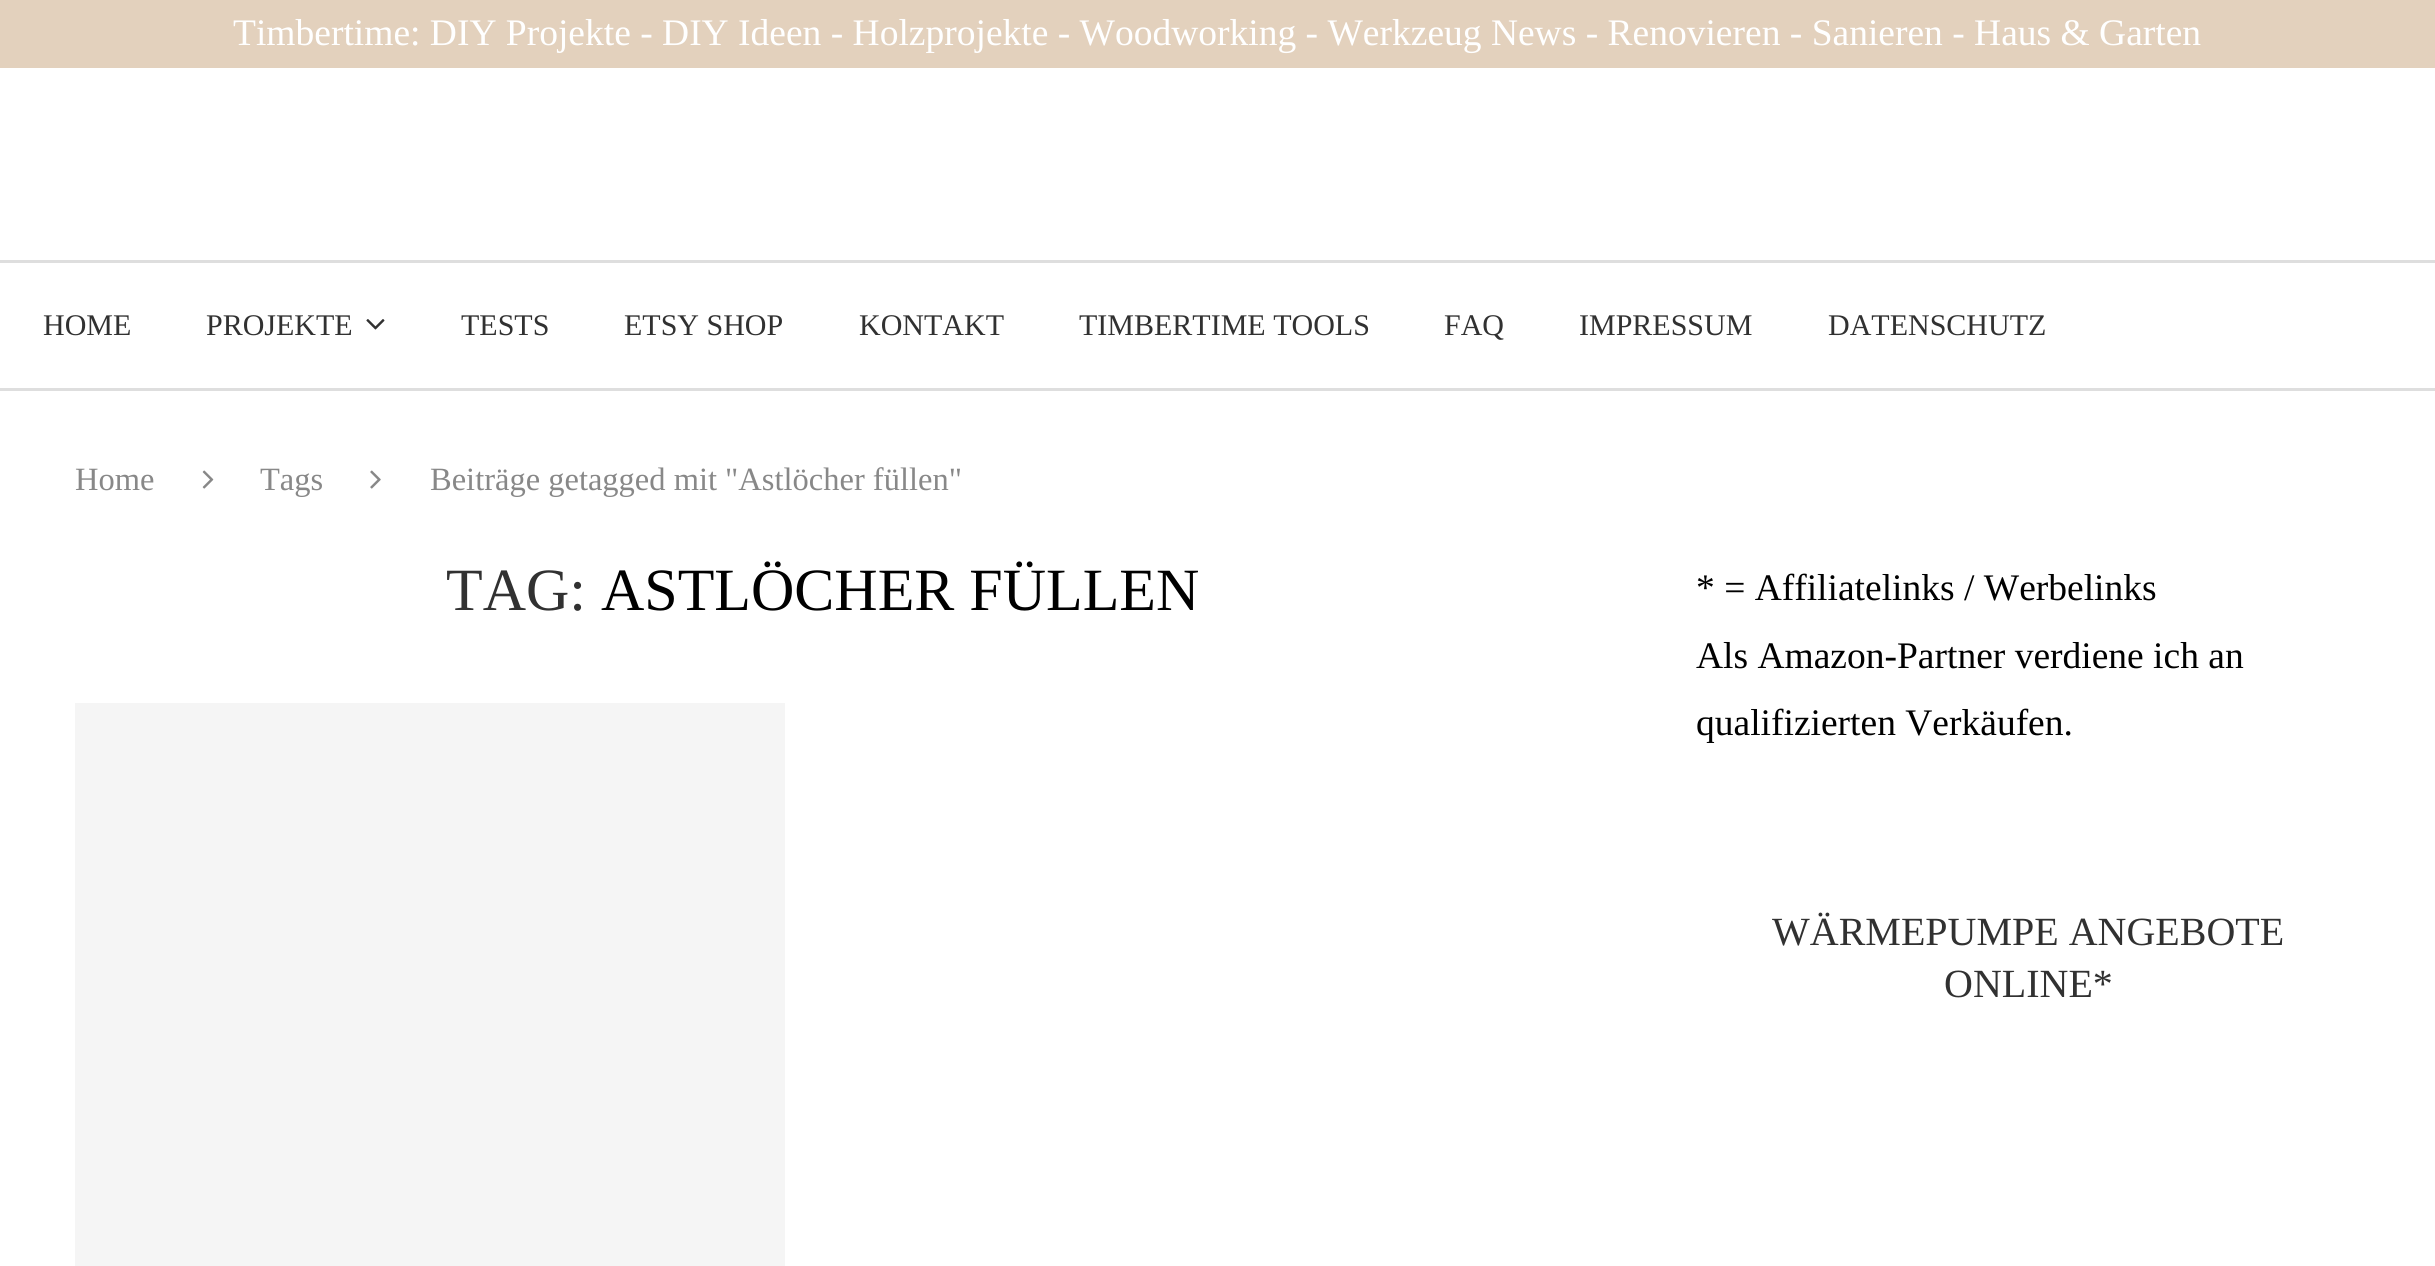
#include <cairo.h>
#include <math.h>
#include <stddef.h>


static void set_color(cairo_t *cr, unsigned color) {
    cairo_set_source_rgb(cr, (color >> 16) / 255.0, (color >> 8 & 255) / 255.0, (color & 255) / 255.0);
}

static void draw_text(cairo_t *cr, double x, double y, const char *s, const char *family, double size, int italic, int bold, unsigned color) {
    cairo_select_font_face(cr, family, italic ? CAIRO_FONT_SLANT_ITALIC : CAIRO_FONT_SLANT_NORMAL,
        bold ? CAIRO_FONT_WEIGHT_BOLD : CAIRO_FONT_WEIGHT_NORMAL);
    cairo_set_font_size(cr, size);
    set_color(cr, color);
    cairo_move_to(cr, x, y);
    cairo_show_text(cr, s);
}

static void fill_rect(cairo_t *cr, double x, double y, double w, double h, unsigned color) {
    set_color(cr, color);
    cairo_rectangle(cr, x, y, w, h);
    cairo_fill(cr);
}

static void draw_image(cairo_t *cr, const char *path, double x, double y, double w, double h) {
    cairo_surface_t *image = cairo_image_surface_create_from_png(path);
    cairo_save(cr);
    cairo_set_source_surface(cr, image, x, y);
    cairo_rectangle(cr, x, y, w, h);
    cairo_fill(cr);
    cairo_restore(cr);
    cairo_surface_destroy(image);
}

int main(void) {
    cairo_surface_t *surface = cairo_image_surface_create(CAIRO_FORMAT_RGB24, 2435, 1266);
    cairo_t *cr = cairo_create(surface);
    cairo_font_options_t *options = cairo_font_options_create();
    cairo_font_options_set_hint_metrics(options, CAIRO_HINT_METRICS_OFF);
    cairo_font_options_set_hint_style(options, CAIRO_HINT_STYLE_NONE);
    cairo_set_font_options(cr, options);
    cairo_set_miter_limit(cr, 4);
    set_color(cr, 0xFFFFFF);
    cairo_paint(cr);
    fill_rect(cr, 0, 0, 2435, 68, 0xE3D1BD);
    draw_text(cr, 233, 45, "Timbertime: DIY Projekte - DIY Ideen - Holzprojekte - Woodworking - Werkzeug News - Renovieren - Sanieren - Haus & Garten", "Liberation Serif", 37.5, 0, 0, 0xFFFFFF);
    fill_rect(cr, 0, 260, 2435, 3, 0xDEDEDE);
    fill_rect(cr, 0, 388, 2435, 3, 0xDEDEDE);
    draw_text(cr, 43, 335, "HOME", "Liberation Serif", 30, 0, 0, 0x313131);
    draw_text(cr, 206, 335, "PROJEKTE", "Liberation Serif", 30, 0, 0, 0x313131);
    draw_image(cr, "assets/img1.png", 366, 319, 19, 11);
    draw_text(cr, 461, 335, "TESTS", "Liberation Serif", 30, 0, 0, 0x313131);
    draw_text(cr, 624, 335, "ETSY SHOP", "Liberation Serif", 30, 0, 0, 0x313131);
    draw_text(cr, 859, 335, "KONTAKT", "Liberation Serif", 30, 0, 0, 0x313131);
    draw_text(cr, 1079, 335, "TIMBERTIME TOOLS", "Liberation Serif", 30, 0, 0, 0x313131);
    draw_text(cr, 1444, 335, "FAQ", "Liberation Serif", 30, 0, 0, 0x313131);
    draw_text(cr, 1579, 335, "IMPRESSUM", "Liberation Serif", 30, 0, 0, 0x313131);
    draw_text(cr, 1828, 335, "DATENSCHUTZ", "Liberation Serif", 30, 0, 0, 0x313131);
    draw_text(cr, 75, 490, "Home", "Liberation Serif", 32.5, 0, 0, 0x888888);
    draw_image(cr, "assets/img2.png", 202, 470, 12, 19);
    draw_text(cr, 260, 490, "Tags", "Liberation Serif", 32.5, 0, 0, 0x888888);
    draw_image(cr, "assets/img3.png", 370, 470, 11, 19);
    draw_text(cr, 430, 490, "Beiträge getagged mit \"Astlöcher füllen\"", "Liberation Serif", 32.5, 0, 0, 0x888888);
    draw_text(cr, 446, 610, "TAG:", "Liberation Serif", 60, 0, 0, 0x313131);
    draw_text(cr, 601, 610, "ASTLÖCHER FÜLLEN", "Liberation Serif", 60, 0, 0, 0x000000);
    fill_rect(cr, 75, 703, 710, 563, 0xF5F5F5);
    draw_text(cr, 1696, 600, "* = Affiliatelinks / Werbelinks", "Liberation Serif", 37.5, 0, 0, 0x000000);
    draw_text(cr, 1696, 668, "Als Amazon-Partner verdiene ich an", "Liberation Serif", 37.5, 0, 0, 0x000000);
    draw_text(cr, 1696, 735, "qualifizierten Verkäufen.", "Liberation Serif", 37.5, 0, 0, 0x000000);
    draw_text(cr, 1772, 945, "WÄRMEPUMPE ANGEBOTE", "Liberation Serif", 40, 0, 0, 0x313131);
    draw_text(cr, 1944, 997, "ONLINE*", "Liberation Serif", 40, 0, 0, 0x313131);
    cairo_surface_write_to_png(surface, "output.png");
    cairo_font_options_destroy(options);
    cairo_destroy(cr);
    cairo_surface_destroy(surface);
    return 0;
}
